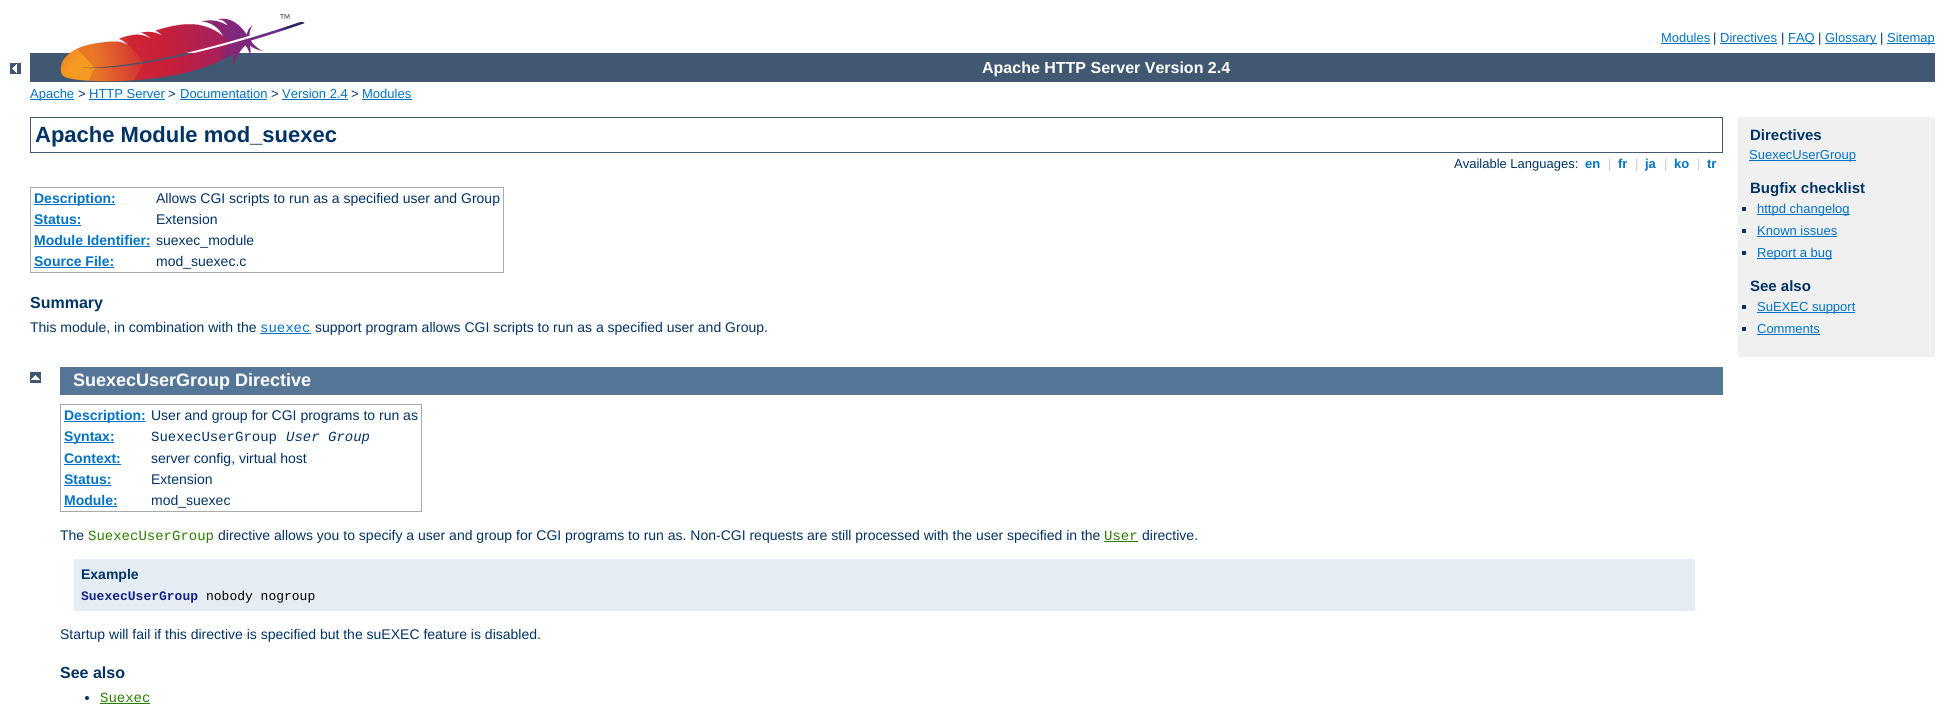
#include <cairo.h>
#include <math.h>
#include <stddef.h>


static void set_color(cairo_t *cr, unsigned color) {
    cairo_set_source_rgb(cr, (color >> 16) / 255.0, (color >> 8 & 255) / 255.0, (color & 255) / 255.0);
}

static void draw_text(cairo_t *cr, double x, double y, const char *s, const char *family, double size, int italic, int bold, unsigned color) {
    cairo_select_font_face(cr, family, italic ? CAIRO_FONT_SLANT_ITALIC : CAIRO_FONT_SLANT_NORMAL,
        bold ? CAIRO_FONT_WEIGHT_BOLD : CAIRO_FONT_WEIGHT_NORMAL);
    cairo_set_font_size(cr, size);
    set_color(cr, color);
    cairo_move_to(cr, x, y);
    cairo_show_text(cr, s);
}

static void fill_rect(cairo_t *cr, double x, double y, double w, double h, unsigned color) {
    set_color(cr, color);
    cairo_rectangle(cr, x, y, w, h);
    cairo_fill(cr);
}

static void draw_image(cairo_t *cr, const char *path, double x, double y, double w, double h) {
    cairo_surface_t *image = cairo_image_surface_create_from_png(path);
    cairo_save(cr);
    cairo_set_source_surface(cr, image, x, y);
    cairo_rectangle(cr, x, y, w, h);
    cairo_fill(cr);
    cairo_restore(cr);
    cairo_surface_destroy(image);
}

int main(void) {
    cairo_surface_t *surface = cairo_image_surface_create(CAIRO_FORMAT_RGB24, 1949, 709);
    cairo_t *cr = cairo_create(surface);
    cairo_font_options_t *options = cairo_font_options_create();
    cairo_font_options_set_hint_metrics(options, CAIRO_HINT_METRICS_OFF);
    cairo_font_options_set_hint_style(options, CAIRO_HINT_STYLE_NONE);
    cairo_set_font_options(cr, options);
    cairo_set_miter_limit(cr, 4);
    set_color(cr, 0xFFFFFF);
    cairo_paint(cr);
    draw_image(cr, "assets/img1.png", 10, 63, 11, 11);
    fill_rect(cr, 30, 53, 1905, 29, 0x405871);
    draw_image(cr, "assets/img2.png", 60, 14, 245, 68);
    draw_text(cr, 1661, 42, "Modules", "Liberation Sans", 13, 0, 0, 0x0073C7);
    fill_rect(cr, 1661, 43, 49, 1, 0x0073C7);
    draw_text(cr, 1713, 42, "|", "Liberation Sans", 13, 0, 0, 0x003366);
    draw_text(cr, 1720, 42, "Directives", "Liberation Sans", 13, 0, 0, 0x0073C7);
    fill_rect(cr, 1720, 43, 57, 1, 0x0073C7);
    draw_text(cr, 1781, 42, "|", "Liberation Sans", 13, 0, 0, 0x003366);
    fill_rect(cr, 1788, 43, 27, 1, 0x0073C7);
    draw_text(cr, 1788, 42, "FAQ", "Liberation Sans", 13, 0, 0, 0x0073C7);
    draw_text(cr, 1818, 42, "|", "Liberation Sans", 13, 0, 0, 0x003366);
    fill_rect(cr, 1825, 43, 52, 1, 0x0073C7);
    draw_text(cr, 1825, 42, "Glossary", "Liberation Sans", 13, 0, 0, 0x0073C7);
    draw_text(cr, 1880, 42, "|", "Liberation Sans", 13, 0, 0, 0x003366);
    fill_rect(cr, 1887, 43, 48, 1, 0x0073C7);
    draw_text(cr, 1887, 42, "Sitemap", "Liberation Sans", 13, 0, 0, 0x0073C7);
    draw_text(cr, 982, 73, "Apache HTTP Server Version 2.4", "Liberation Sans", 16, 0, 1, 0xFFFFFF);
    fill_rect(cr, 30, 99, 44, 1, 0x0073C7);
    draw_text(cr, 30, 98, "Apache", "Liberation Sans", 13, 0, 0, 0x0073C7);
    draw_text(cr, 78, 98, ">", "Liberation Sans", 13, 0, 0, 0x003366);
    draw_text(cr, 89, 98, "HTTP Server", "Liberation Sans", 13, 0, 0, 0x0073C7);
    fill_rect(cr, 89, 99, 76, 1, 0x0073C7);
    draw_text(cr, 168, 98, ">", "Liberation Sans", 13, 0, 0, 0x003366);
    draw_text(cr, 180, 98, "Documentation", "Liberation Sans", 13, 0, 0, 0x0073C7);
    fill_rect(cr, 180, 99, 87, 1, 0x0073C7);
    draw_text(cr, 271, 98, ">", "Liberation Sans", 13, 0, 0, 0x003366);
    draw_text(cr, 282, 98, "Version 2.4", "Liberation Sans", 13, 0, 0, 0x0073C7);
    fill_rect(cr, 282, 99, 66, 1, 0x0073C7);
    draw_text(cr, 351, 98, ">", "Liberation Sans", 13, 0, 0, 0x003366);
    draw_text(cr, 362, 98, "Modules", "Liberation Sans", 13, 0, 0, 0x0073C7);
    fill_rect(cr, 362, 99, 50, 1, 0x0073C7);
    cairo_rectangle(cr, 30.5, 117.5, 1692, 35);
    set_color(cr, 0x405871);
    cairo_set_line_width(cr, 1);
    cairo_stroke(cr);
    draw_text(cr, 35, 142, "Apache Module mod_suexec", "Liberation Sans", 22, 0, 1, 0x003366);
    draw_text(cr, 1454, 168, "Available Languages:", "Liberation Sans", 13, 0, 0, 0x003366);
    draw_text(cr, 1585, 168, "en", "Liberation Sans", 13, 0, 1, 0x0073C7);
    draw_text(cr, 1608, 168, "|", "Liberation Sans", 13, 0, 0, 0xCCCCCC);
    draw_text(cr, 1618, 168, "fr", "Liberation Sans", 13, 0, 1, 0x0073C7);
    draw_text(cr, 1635, 168, "|", "Liberation Sans", 13, 0, 0, 0xCCCCCC);
    draw_text(cr, 1645, 168, "ja", "Liberation Sans", 13, 0, 1, 0x0073C7);
    draw_text(cr, 1664, 168, "|", "Liberation Sans", 13, 0, 0, 0xCCCCCC);
    draw_text(cr, 1674, 168, "ko", "Liberation Sans", 13, 0, 1, 0x0073C7);
    draw_text(cr, 1697, 168, "|", "Liberation Sans", 13, 0, 0, 0xCCCCCC);
    draw_text(cr, 1707, 168, "tr", "Liberation Sans", 13, 0, 1, 0x0073C7);
    fill_rect(cr, 30, 187, 474, 1, 0xAAAAAA);
    fill_rect(cr, 503, 187, 1, 86, 0xAAAAAA);
    fill_rect(cr, 30, 272, 474, 1, 0xAAAAAA);
    fill_rect(cr, 30, 187, 1, 86, 0xAAAAAA);
    fill_rect(cr, 34, 204, 81, 1, 0x0073C7);
    draw_text(cr, 34, 203, "Description:", "Liberation Sans", 14, 0, 1, 0x0073C7);
    draw_text(cr, 156, 203, "Allows CGI scripts to run as a specified user and Group", "Liberation Sans", 14, 0, 0, 0x003366);
    draw_text(cr, 34, 224, "Status:", "Liberation Sans", 14, 0, 1, 0x0073C7);
    fill_rect(cr, 34, 225, 47, 1, 0x0073C7);
    draw_text(cr, 156, 224, "Extension", "Liberation Sans", 14, 0, 0, 0x003366);
    draw_text(cr, 34, 245, "Module Identifier:", "Liberation Sans", 14, 0, 1, 0x0073C7);
    fill_rect(cr, 34, 246, 116, 1, 0x0073C7);
    draw_text(cr, 156, 245, "suexec_module", "Liberation Sans", 14, 0, 0, 0x003366);
    draw_text(cr, 34, 266, "Source File:", "Liberation Sans", 14, 0, 1, 0x0073C7);
    fill_rect(cr, 34, 267, 80, 1, 0x0073C7);
    draw_text(cr, 156, 266, "mod_suexec.c", "Liberation Sans", 14, 0, 0, 0x003366);
    draw_text(cr, 30, 308, "Summary", "Liberation Sans", 16, 0, 1, 0x003366);
    draw_text(cr, 30, 332, "This module, in combination with the", "Liberation Sans", 14, 0, 0, 0x003366);
    draw_text(cr, 260, 332, "suexec", "Liberation Mono", 14, 0, 0, 0x0073C7);
    fill_rect(cr, 260, 333, 51, 1, 0x0073C7);
    draw_text(cr, 315, 332, "support program allows CGI scripts to run as a specified user and Group.", "Liberation Sans", 14, 0, 0, 0x003366);
    fill_rect(cr, 1738, 117, 197, 240, 0xF0F0F0);
    draw_text(cr, 1750, 140, "Directives", "Liberation Sans", 15, 0, 1, 0x003366);
    fill_rect(cr, 1749, 160, 107, 1, 0x0073C7);
    draw_text(cr, 1749, 159, "SuexecUserGroup", "Liberation Sans", 13, 0, 0, 0x0073C7);
    draw_text(cr, 1750, 193, "Bugfix checklist", "Liberation Sans", 15, 0, 1, 0x003366);
    fill_rect(cr, 1742, 207, 4, 4, 0x003366);
    fill_rect(cr, 1757, 214, 93, 1, 0x0073C7);
    draw_text(cr, 1757, 213, "httpd changelog", "Liberation Sans", 13, 0, 0, 0x0073C7);
    fill_rect(cr, 1742, 229, 4, 4, 0x003366);
    draw_text(cr, 1757, 235, "Known issues", "Liberation Sans", 13, 0, 0, 0x0073C7);
    fill_rect(cr, 1757, 236, 80, 1, 0x0073C7);
    fill_rect(cr, 1742, 251, 4, 4, 0x003366);
    fill_rect(cr, 1757, 258, 75, 1, 0x0073C7);
    draw_text(cr, 1757, 257, "Report a bug", "Liberation Sans", 13, 0, 0, 0x0073C7);
    draw_text(cr, 1750, 291, "See also", "Liberation Sans", 15, 0, 1, 0x003366);
    fill_rect(cr, 1742, 305, 4, 4, 0x003366);
    fill_rect(cr, 1757, 312, 98, 1, 0x0073C7);
    draw_text(cr, 1757, 311, "SuEXEC support", "Liberation Sans", 13, 0, 0, 0x0073C7);
    fill_rect(cr, 1742, 327, 4, 4, 0x003366);
    draw_text(cr, 1757, 333, "Comments", "Liberation Sans", 13, 0, 0, 0x0073C7);
    fill_rect(cr, 1757, 334, 63, 1, 0x0073C7);
    draw_image(cr, "assets/img3.png", 30, 372, 11, 11);
    fill_rect(cr, 60, 367, 1663, 28, 0x557697);
    draw_text(cr, 73, 386, "SuexecUserGroup Directive", "Liberation Sans", 18, 0, 1, 0xFFFFFF);
    fill_rect(cr, 60, 404, 362, 1, 0xAAAAAA);
    fill_rect(cr, 421, 404, 1, 108, 0xAAAAAA);
    fill_rect(cr, 60, 511, 362, 1, 0xAAAAAA);
    fill_rect(cr, 60, 404, 1, 108, 0xAAAAAA);
    fill_rect(cr, 64, 421, 81, 1, 0x0073C7);
    draw_text(cr, 64, 420, "Description:", "Liberation Sans", 14, 0, 1, 0x0073C7);
    draw_text(cr, 151, 420, "User and group for CGI programs to run as", "Liberation Sans", 14, 0, 0, 0x003366);
    fill_rect(cr, 64, 442, 50, 1, 0x0073C7);
    draw_text(cr, 64, 441, "Syntax:", "Liberation Sans", 14, 0, 1, 0x0073C7);
    draw_text(cr, 151, 441, "SuexecUserGroup", "Liberation Mono", 14, 0, 0, 0x003366);
    draw_text(cr, 286, 441, "User Group", "Liberation Mono", 14, 1, 0, 0x003366);
    draw_text(cr, 64, 463, "Context:", "Liberation Sans", 14, 0, 1, 0x0073C7);
    fill_rect(cr, 64, 464, 57, 1, 0x0073C7);
    draw_text(cr, 151, 463, "server config, virtual host", "Liberation Sans", 14, 0, 0, 0x003366);
    draw_text(cr, 64, 484, "Status:", "Liberation Sans", 14, 0, 1, 0x0073C7);
    fill_rect(cr, 64, 485, 47, 1, 0x0073C7);
    draw_text(cr, 151, 484, "Extension", "Liberation Sans", 14, 0, 0, 0x003366);
    draw_text(cr, 64, 505, "Module:", "Liberation Sans", 14, 0, 1, 0x0073C7);
    fill_rect(cr, 64, 506, 53, 1, 0x0073C7);
    draw_text(cr, 151, 505, "mod_suexec", "Liberation Sans", 14, 0, 0, 0x003366);
    draw_text(cr, 60, 540, "The", "Liberation Sans", 14, 0, 0, 0x003366);
    draw_text(cr, 88, 540, "SuexecUserGroup", "Liberation Mono", 14, 0, 0, 0x287F00);
    draw_text(cr, 218, 540, "directive allows you to specify a user and group for CGI programs to run as. Non-CGI requests are still processed with the user specified in the", "Liberation Sans", 14, 0, 0, 0x003366);
    draw_text(cr, 1104, 540, "User", "Liberation Mono", 14, 0, 0, 0x287F00);
    fill_rect(cr, 1104, 541, 34, 1, 0x287F00);
    draw_text(cr, 1142, 540, "directive.", "Liberation Sans", 14, 0, 0, 0x003366);
    fill_rect(cr, 74, 559, 1621, 52, 0xE5ECF3);
    draw_text(cr, 81, 579, "Example", "Liberation Sans", 14, 0, 1, 0x003366);
    draw_text(cr, 81, 600, "SuexecUserGroup", "Liberation Mono", 13, 0, 1, 0x112288);
    draw_text(cr, 206, 600, "nobody nogroup", "Liberation Mono", 13, 0, 0, 0x000000);
    draw_text(cr, 60, 639, "Startup will fail if this directive is specified but the suEXEC feature is disabled.", "Liberation Sans", 14, 0, 0, 0x003366);
    draw_text(cr, 60, 678, "See also", "Liberation Sans", 16, 0, 1, 0x003366);
    cairo_new_path(cr);
    cairo_arc(cr, 87, 698, 2, 0, 2 * M_PI);
    cairo_fill(cr);
    draw_text(cr, 100, 702, "Suexec", "Liberation Mono", 14, 0, 0, 0x287F00);
    fill_rect(cr, 100, 703, 50, 1, 0x287F00);
    cairo_surface_write_to_png(surface, "output.png");
    cairo_font_options_destroy(options);
    cairo_destroy(cr);
    cairo_surface_destroy(surface);
    return 0;
}
